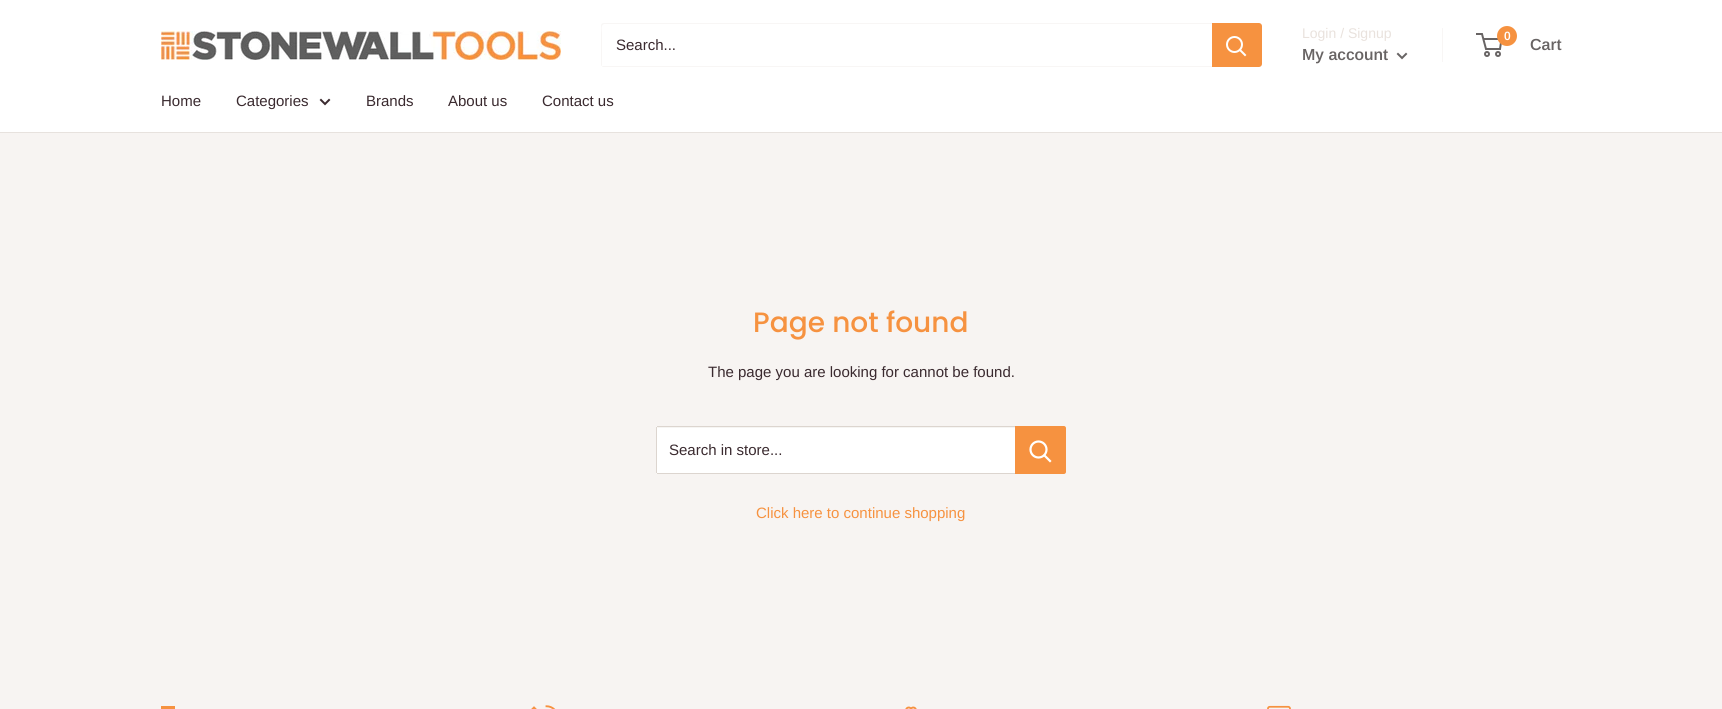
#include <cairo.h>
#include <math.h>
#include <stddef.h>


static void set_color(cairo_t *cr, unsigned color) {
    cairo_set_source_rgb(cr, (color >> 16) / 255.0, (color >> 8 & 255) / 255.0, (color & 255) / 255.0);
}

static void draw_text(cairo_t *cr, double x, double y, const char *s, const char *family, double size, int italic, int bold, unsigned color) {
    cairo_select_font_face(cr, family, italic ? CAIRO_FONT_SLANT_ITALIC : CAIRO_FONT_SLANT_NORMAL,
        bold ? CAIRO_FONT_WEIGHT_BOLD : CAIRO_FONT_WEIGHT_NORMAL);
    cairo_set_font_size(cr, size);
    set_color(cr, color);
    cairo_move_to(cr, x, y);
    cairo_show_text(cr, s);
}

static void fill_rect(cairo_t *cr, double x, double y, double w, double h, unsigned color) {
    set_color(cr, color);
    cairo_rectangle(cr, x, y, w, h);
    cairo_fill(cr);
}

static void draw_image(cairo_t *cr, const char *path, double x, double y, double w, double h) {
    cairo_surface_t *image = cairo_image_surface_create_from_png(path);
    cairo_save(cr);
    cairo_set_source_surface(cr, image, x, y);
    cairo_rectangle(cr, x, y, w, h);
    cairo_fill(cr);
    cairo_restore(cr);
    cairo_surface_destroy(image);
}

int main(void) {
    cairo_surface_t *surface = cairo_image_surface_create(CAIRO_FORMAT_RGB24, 1722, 709);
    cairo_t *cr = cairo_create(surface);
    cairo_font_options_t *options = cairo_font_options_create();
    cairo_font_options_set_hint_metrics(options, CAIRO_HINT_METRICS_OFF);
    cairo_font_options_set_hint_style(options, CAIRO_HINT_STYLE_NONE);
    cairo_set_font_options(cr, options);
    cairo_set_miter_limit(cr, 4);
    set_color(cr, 0xF7F4F2);
    cairo_paint(cr);
    fill_rect(cr, 0, 0, 1722, 132, 0xFFFFFF);
    draw_image(cr, "assets/img1.png", 161, 31, 400, 29);
    set_color(cr, 0xF8F6F5);
    cairo_new_path(cr);
    cairo_move_to(cr, 602, 66);
    cairo_curve_to(cr, 602, 67, 603, 67, 604, 67);
    cairo_line_to(cr, 1259, 67);
    cairo_curve_to(cr, 1261, 67, 1262, 66, 1262, 64);
    cairo_line_to(cr, 1262, 26);
    cairo_curve_to(cr, 1262, 25, 1262, 24, 1261, 24);
    cairo_line_to(cr, 1261, 57);
    cairo_curve_to(cr, 1261, 59, 1263, 66, 1258, 66);
    cairo_close_path(cr);
    cairo_fill(cr);
    cairo_new_path(cr);
    cairo_move_to(cr, 605, 24);
    cairo_line_to(cr, 1261, 24);
    cairo_curve_to(cr, 1261, 23, 1260, 23, 1259, 23);
    cairo_line_to(cr, 604, 23);
    cairo_curve_to(cr, 602, 23, 601, 24, 601, 26);
    cairo_line_to(cr, 601, 64);
    cairo_curve_to(cr, 601, 65, 601, 66, 602, 66);
    cairo_line_to(cr, 602, 33);
    cairo_curve_to(cr, 602, 31, 600, 24, 605, 24);
    cairo_close_path(cr);
    cairo_fill(cr);
    draw_text(cr, 616, 50, "Search...", "Arimo", 15, 0, 0, 0x3A2A2F);
    set_color(cr, 0xF69240);
    cairo_new_path(cr);
    cairo_move_to(cr, 1212, 23);
    cairo_line_to(cr, 1259, 23);
    cairo_curve_to(cr, 1260.5, 23, 1262, 24.5, 1262, 26);
    cairo_line_to(cr, 1262, 64);
    cairo_curve_to(cr, 1262, 65.5, 1260.5, 67, 1259, 67);
    cairo_line_to(cr, 1212, 67);
    cairo_close_path(cr);
    cairo_fill(cr);
    cairo_new_path(cr);
    cairo_move_to(cr, 1245, 55);
    cairo_line_to(cr, 1240, 50);
    set_color(cr, 0xFFFFFF);
    cairo_set_line_cap(cr, CAIRO_LINE_CAP_SQUARE);
    cairo_stroke(cr);
    cairo_arc(cr, 1234.5, 44.5, 7.5, 0, 2 * M_PI);
    cairo_set_line_cap(cr, CAIRO_LINE_CAP_BUTT);
    cairo_stroke(cr);
    draw_text(cr, 1302, 38, "Login / Signup", "Arimo", 14, 0, 0, 0xE9E2DD);
    fill_rect(cr, 1442, 28, 1, 34, 0xF8F6F5);
    draw_text(cr, 1302, 60, "My account", "Arimo SemiBold", 16, 0, 0, 0x686464);
    cairo_new_path(cr);
    cairo_move_to(cr, 1406, 54);
    cairo_line_to(cr, 1402, 58);
    cairo_line_to(cr, 1398, 54);
    cairo_set_line_cap(cr, CAIRO_LINE_CAP_SQUARE);
    cairo_stroke(cr);
    cairo_arc(cr, 1487, 54, 2, 0, 2 * M_PI);
    cairo_set_line_cap(cr, CAIRO_LINE_CAP_BUTT);
    cairo_stroke(cr);
    cairo_arc(cr, 1498, 54, 2, 0, 2 * M_PI);
    cairo_stroke(cr);
    cairo_new_path(cr);
    cairo_move_to(cr, 1483.5, 39);
    cairo_line_to(cr, 1501.5, 39);
    cairo_line_to(cr, 1500, 49);
    cairo_line_to(cr, 1486, 49);
    cairo_line_to(cr, 1482, 34);
    cairo_line_to(cr, 1476, 34);
    cairo_stroke(cr);
    set_color(cr, 0xF69240);
    cairo_arc(cr, 1507, 36, 10, 0, 2 * M_PI);
    cairo_fill(cr);
    draw_text(cr, 1504, 40, "0", "Arimo SemiBold", 12, 0, 0, 0xFFFFFF);
    draw_text(cr, 1530, 50, "Cart", "Arimo SemiBold", 16, 0, 0, 0x686464);
    fill_rect(cr, 0, 132, 1722, 1, 0xE7E2DE);
    draw_text(cr, 161, 106, "Home", "Arimo", 15, 0, 0, 0x3A2A2F);
    draw_text(cr, 236, 106, "Categories", "Arimo", 15, 0, 0, 0x3A2A2F);
    cairo_new_path(cr);
    cairo_move_to(cr, 329, 100);
    cairo_line_to(cr, 325, 104);
    cairo_line_to(cr, 321, 100);
    cairo_set_line_cap(cr, CAIRO_LINE_CAP_SQUARE);
    cairo_stroke(cr);
    draw_text(cr, 366, 106, "Brands", "Arimo", 15, 0, 0, 0x3A2A2F);
    draw_text(cr, 448, 106, "About us", "Arimo", 15, 0, 0, 0x3A2A2F);
    draw_text(cr, 542, 106, "Contact us", "Arimo", 15, 0, 0, 0x3A2A2F);
    draw_text(cr, 753, 332, "Page not found", "Poppins Medium", 28, 0, 0, 0xF69240);
    draw_text(cr, 708, 377, "The page you are looking for cannot be found.", "Arimo", 15, 0, 0, 0x3A2A2F);
    set_color(cr, 0xFFFFFF);
    cairo_new_path(cr);
    cairo_move_to(cr, 658, 426);
    cairo_line_to(cr, 1015, 426);
    cairo_line_to(cr, 1015, 474);
    cairo_line_to(cr, 658, 474);
    cairo_curve_to(cr, 657, 474, 656, 473, 656, 472);
    cairo_line_to(cr, 656, 428);
    cairo_curve_to(cr, 656, 427, 657, 426, 658, 426);
    cairo_close_path(cr);
    cairo_fill(cr);
    set_color(cr, 0xF6F5F3);
    cairo_new_path(cr);
    cairo_move_to(cr, 658, 428);
    cairo_line_to(cr, 1015, 428);
    cairo_line_to(cr, 1015, 427);
    cairo_line_to(cr, 658, 427);
    cairo_curve_to(cr, 657, 427, 657, 428, 657, 429);
    cairo_curve_to(cr, 657, 428, 657, 428, 658, 428);
    cairo_close_path(cr);
    cairo_fill(cr);
    fill_rect(cr, 657, 426, 358, 1, 0xDCD5CF);
    fill_rect(cr, 657, 473, 358, 1, 0xDCD5CF);
    fill_rect(cr, 656, 427, 1, 46, 0xDCD5CF);
    draw_text(cr, 669, 455, "Search in store...", "Arimo", 15, 0, 0, 0x3A2A2F);
    set_color(cr, 0xF69240);
    cairo_new_path(cr);
    cairo_move_to(cr, 1015, 426);
    cairo_line_to(cr, 1064, 426);
    cairo_curve_to(cr, 1065, 426, 1066, 427, 1066, 428);
    cairo_line_to(cr, 1066, 472);
    cairo_curve_to(cr, 1066, 473, 1065, 474, 1064, 474);
    cairo_line_to(cr, 1015, 474);
    cairo_close_path(cr);
    cairo_fill(cr);
    cairo_new_path(cr);
    cairo_move_to(cr, 1050, 461);
    cairo_line_to(cr, 1044.5, 455.5);
    set_color(cr, 0xFFFFFF);
    cairo_set_line_width(cr, 2.2);
    cairo_stroke(cr);
    cairo_arc(cr, 1038.5, 449.5, 8, 0, 2 * M_PI);
    cairo_set_line_cap(cr, CAIRO_LINE_CAP_BUTT);
    cairo_stroke(cr);
    draw_text(cr, 756, 518, "Click here to continue shopping", "Arimo", 15, 0, 0, 0xF69240);
    fill_rect(cr, 161, 706, 14, 3, 0xF69240);
    draw_image(cr, "assets/img2.png", 531, 705, 25, 4);
    draw_image(cr, "assets/img3.png", 905, 706, 12, 3);
    draw_image(cr, "assets/img4.png", 1267, 705, 24, 4);
    cairo_surface_write_to_png(surface, "output.png");
    cairo_font_options_destroy(options);
    cairo_destroy(cr);
    cairo_surface_destroy(surface);
    return 0;
}
